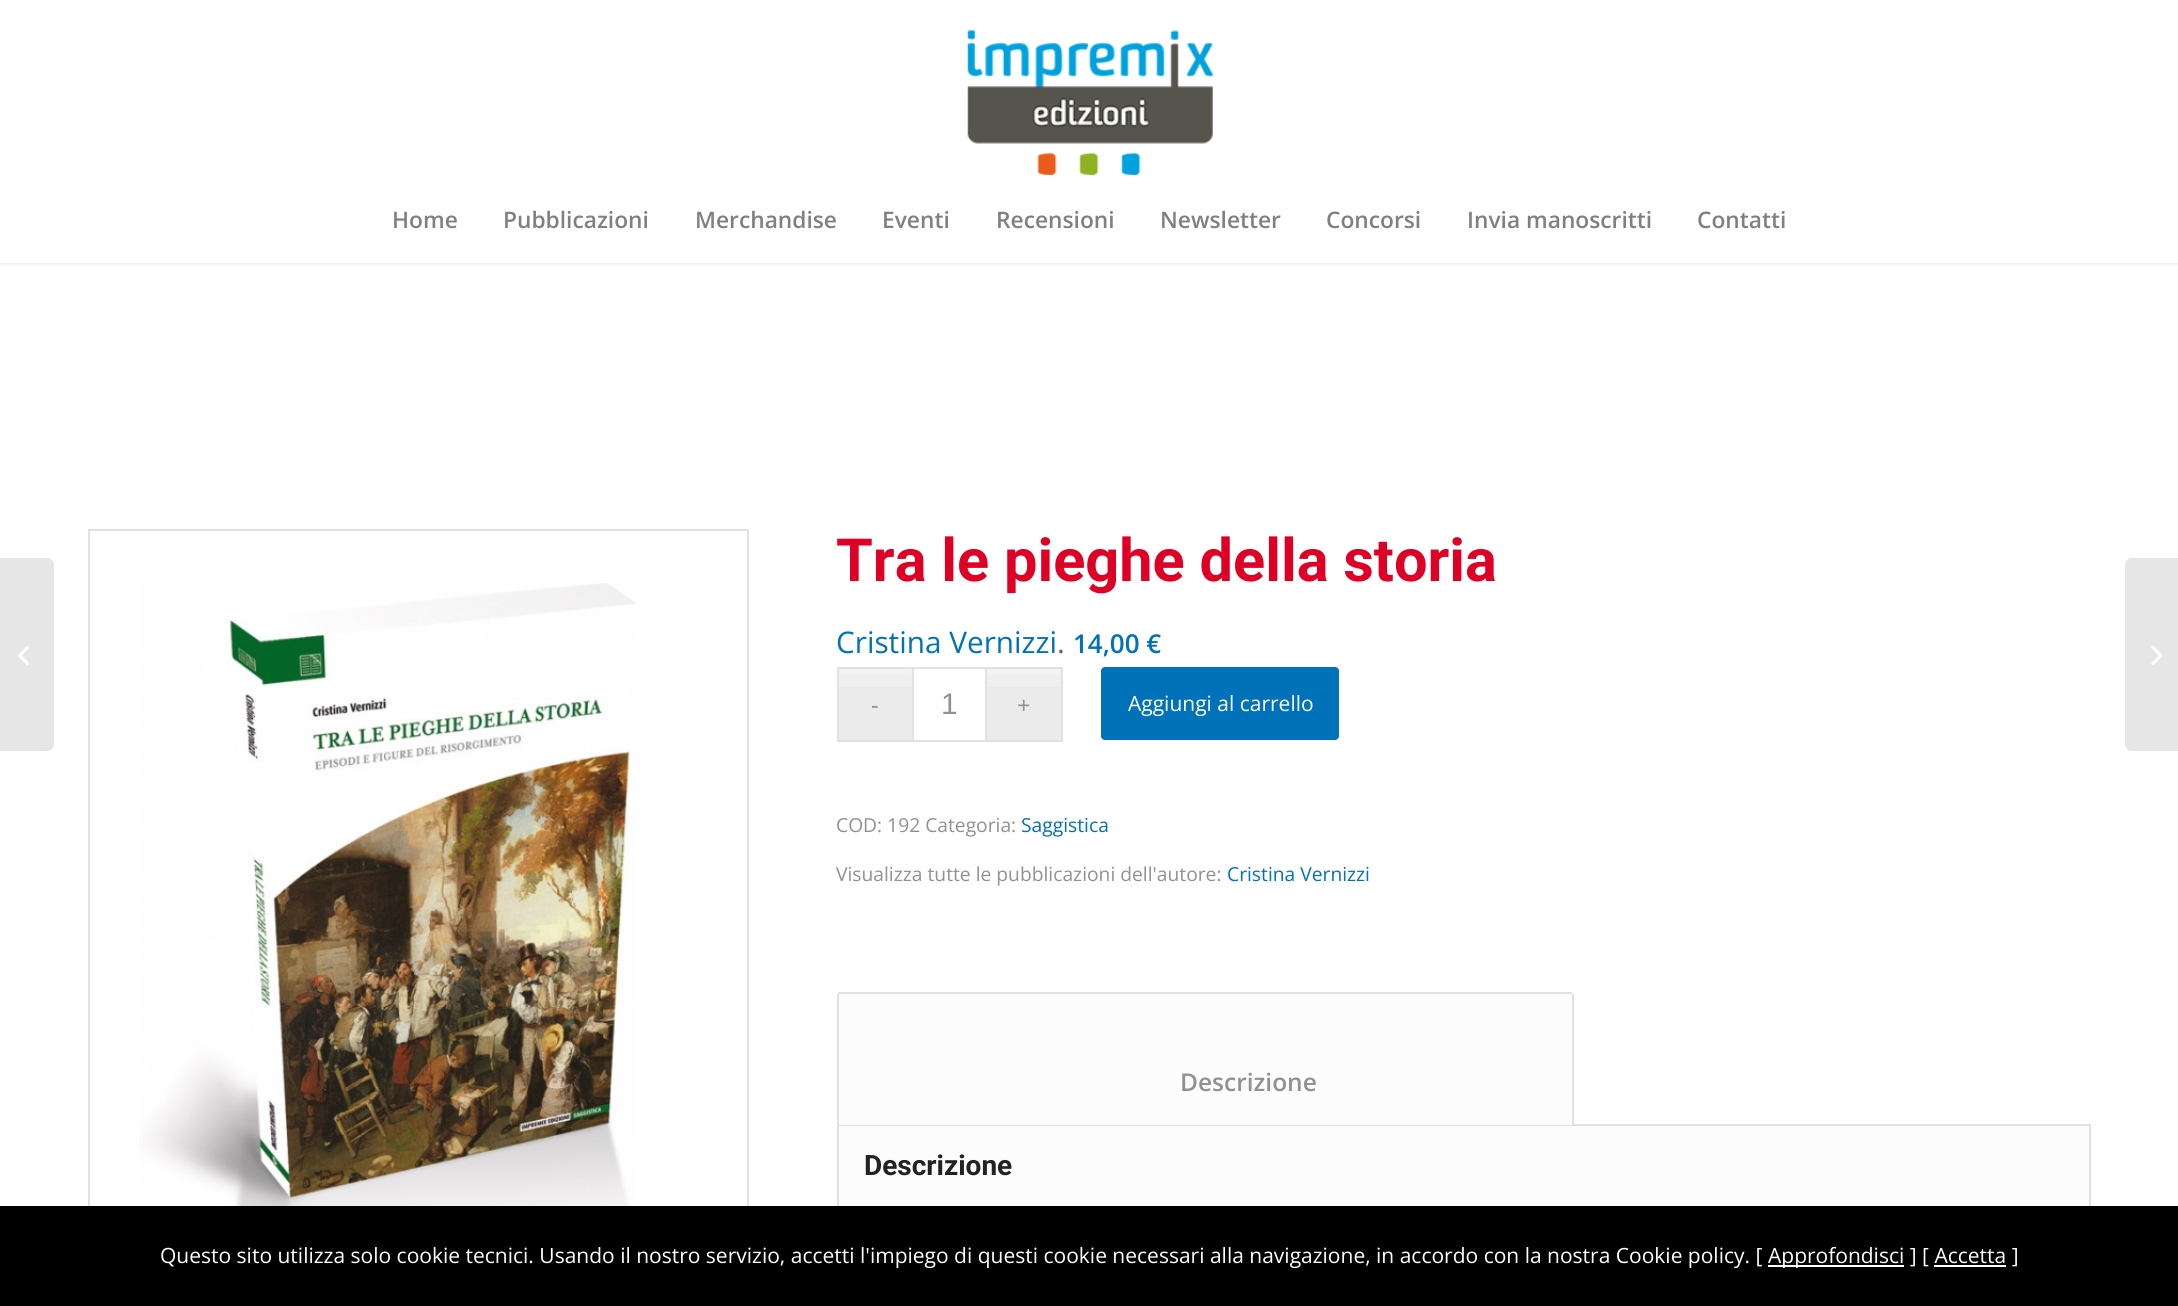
#include <cairo.h>
#include <math.h>
#include <stddef.h>


static void set_color(cairo_t *cr, unsigned color) {
    cairo_set_source_rgb(cr, (color >> 16) / 255.0, (color >> 8 & 255) / 255.0, (color & 255) / 255.0);
}

static void draw_text(cairo_t *cr, double x, double y, const char *s, const char *family, double size, int italic, int bold, unsigned color) {
    cairo_select_font_face(cr, family, italic ? CAIRO_FONT_SLANT_ITALIC : CAIRO_FONT_SLANT_NORMAL,
        bold ? CAIRO_FONT_WEIGHT_BOLD : CAIRO_FONT_WEIGHT_NORMAL);
    cairo_set_font_size(cr, size);
    set_color(cr, color);
    cairo_move_to(cr, x, y);
    cairo_show_text(cr, s);
}

static void fill_rect(cairo_t *cr, double x, double y, double w, double h, unsigned color) {
    set_color(cr, color);
    cairo_rectangle(cr, x, y, w, h);
    cairo_fill(cr);
}

static void rounded_rect(cairo_t *cr, double x, double y, double w, double h, double r) {
    cairo_new_sub_path(cr);
    cairo_arc(cr, x + w - r, y + h - r, r, 0, M_PI / 2);
    cairo_arc(cr, x + r, y + h - r, r, M_PI / 2, M_PI);
    cairo_arc(cr, x + r, y + r, r, M_PI, 1.5 * M_PI);
    cairo_arc(cr, x + w - r, y + r, r, 1.5 * M_PI, 2 * M_PI);
    cairo_close_path(cr);
}

static void draw_shadow(cairo_t *cr, double x, double y, double w, double h, double r, double blur, double alpha) {
    cairo_push_group_with_content(cr, CAIRO_CONTENT_ALPHA);
    cairo_set_operator(cr, CAIRO_OPERATOR_SOURCE);
    for (int i = 15; i >= -15 && fmin(w, h) + blur * i / 3 > 0; i -= 2) {
        double e = blur * i / 6;
        cairo_set_source_rgba(cr, 0, 0, 0, alpha * erfc((i - 1) / 8.5) / 2);
        rounded_rect(cr, x - e, y - e, w + 2 * e, h + 2 * e, fmax(0, fmin(r + e + blur * .6, fmin(w, h) / 2 + e)));
        cairo_fill(cr);
    }
    cairo_pattern_t *soft = cairo_pop_group(cr);
    cairo_mask(cr, soft);
    cairo_pattern_destroy(soft);
}

static void draw_image(cairo_t *cr, const char *path, double x, double y, double w, double h) {
    cairo_surface_t *image = cairo_image_surface_create_from_png(path);
    cairo_save(cr);
    cairo_set_source_surface(cr, image, x, y);
    cairo_rectangle(cr, x, y, w, h);
    cairo_fill(cr);
    cairo_restore(cr);
    cairo_surface_destroy(image);
}

int main(void) {
    cairo_surface_t *surface = cairo_image_surface_create(CAIRO_FORMAT_RGB24, 2178, 1306);
    cairo_t *cr = cairo_create(surface);
    cairo_font_options_t *options = cairo_font_options_create();
    cairo_font_options_set_hint_metrics(options, CAIRO_HINT_METRICS_OFF);
    cairo_font_options_set_hint_style(options, CAIRO_HINT_STYLE_NONE);
    cairo_set_font_options(cr, options);
    cairo_set_miter_limit(cr, 4);
    set_color(cr, 0xFFFFFF);
    cairo_paint(cr);
    set_color(cr, 0x000000);
    draw_shadow(cr, -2, -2, 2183, 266, 0, 2, 0.1);
    fill_rect(cr, 0, 0, 2178, 263, 0xFFFFFF);
    draw_image(cr, "assets/img1.png", 967, 30, 246, 145);
    draw_text(cr, 392, 228, "Home", "Open Sans SemiBold", 22.75, 0, 0, 0x808080);
    draw_text(cr, 503, 228, "Pubblicazioni", "Open Sans SemiBold", 22.75, 0, 0, 0x808080);
    draw_text(cr, 695, 228, "Merchandise", "Open Sans SemiBold", 22.75, 0, 0, 0x808080);
    draw_text(cr, 882, 228, "Eventi", "Open Sans SemiBold", 22.75, 0, 0, 0x808080);
    draw_text(cr, 996, 228, "Recensioni", "Open Sans SemiBold", 22.75, 0, 0, 0x808080);
    draw_text(cr, 1160, 228, "Newsletter", "Open Sans SemiBold", 22.75, 0, 0, 0x808080);
    draw_text(cr, 1326, 228, "Concorsi", "Open Sans SemiBold", 22.75, 0, 0, 0x808080);
    draw_text(cr, 1467, 228, "Invia manoscritti", "Open Sans SemiBold", 22.75, 0, 0, 0x808080);
    draw_text(cr, 1697, 228, "Contatti", "Open Sans SemiBold", 22.75, 0, 0, 0x808080);
    set_color(cr, 0xE6E6E6);
    cairo_new_path(cr);
    cairo_move_to(cr, 0, 558);
    cairo_line_to(cr, 47, 558);
    cairo_curve_to(cr, 51, 558, 54, 561, 54, 565);
    cairo_line_to(cr, 54, 744);
    cairo_curve_to(cr, 54, 748, 51, 751, 47, 751);
    cairo_line_to(cr, 0, 751);
    cairo_close_path(cr);
    cairo_fill(cr);
    draw_image(cr, "assets/img2.png", 18, 645, 11, 21);
    cairo_rectangle(cr, 89, 530, 659, 766);
    set_color(cr, 0xE1E1E1);
    cairo_stroke(cr);
    draw_image(cr, "assets/img3.png", 139, 583, 498, 623);
    draw_text(cr, 836, 581, "Tra le pieghe della storia", "Roboto", 59.5, 0, 1, 0xDF0025);
    draw_text(cr, 836, 653, "Cristina Vernizzi", "Open Sans", 29.75, 0, 0, 0x0072B9);
    draw_text(cr, 1057, 653, ".", "Open Sans", 29.75, 0, 0, 0x666666);
    draw_text(cr, 1073, 653, "14,00 €", "Open Sans SemiBold", 26, 0, 0, 0x0072B9);
    fill_rect(cr, 839, 669, 73, 71, 0xEBEBEB);
    draw_image(cr, "assets/img4.png", 839, 669, 73, 18);
    fill_rect(cr, 987, 669, 74, 71, 0xEBEBEB);
    draw_image(cr, "assets/img5.png", 987, 669, 74, 18);
    draw_text(cr, 871, 713, "-", "Liberation Sans", 23, 0, 0, 0x919191);
    fill_rect(cr, 837, 667, 75, 2, 0xE1E1E1);
    fill_rect(cr, 837, 740, 75, 2, 0xE1E1E1);
    fill_rect(cr, 837, 667, 2, 75, 0xE1E1E1);
    cairo_rectangle(cr, 913, 668, 73, 73);
    cairo_stroke(cr);
    draw_text(cr, 941, 714, "1", "Liberation Sans", 29.75, 0, 0, 0x919191);
    draw_text(cr, 1017, 713, "+", "Liberation Sans", 23, 0, 0, 0x919191);
    fill_rect(cr, 987, 667, 75, 2, 0xE1E1E1);
    fill_rect(cr, 1061, 667, 2, 75, 0xE1E1E1);
    fill_rect(cr, 987, 740, 75, 2, 0xE1E1E1);
    set_color(cr, 0x0072B9);
    rounded_rect(cr, 1101, 667, 238, 73, 4);
    cairo_fill(cr);
    draw_text(cr, 1128, 711, "Aggiungi al carrello", "Open Sans", 21, 0, 0, 0xFFFFFF);
    draw_text(cr, 836, 832, "COD: 192 Categoria:", "Open Sans", 19.25, 0, 0, 0x919191);
    draw_text(cr, 1021, 832, "Saggistica", "Open Sans", 19.25, 0, 0, 0x0072B9);
    draw_text(cr, 836, 881, "Visualizza tutte le pubblicazioni dell'autore:", "Open Sans", 19.25, 0, 0, 0x919191);
    draw_text(cr, 1227, 881, "Cristina Vernizzi", "Open Sans", 19.25, 0, 0, 0x0072B9);
    fill_rect(cr, 839, 1126, 1250, 80, 0xFCFCFC);
    cairo_rectangle(cr, 838, 1125, 1252, 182);
    set_color(cr, 0xE1E1E1);
    cairo_stroke(cr);
    fill_rect(cr, 837, 992, 736, 133, 0xFCFCFC);
    fill_rect(cr, 838, 992, 734, 2, 0xE1E1E1);
    fill_rect(cr, 1572, 994, 2, 131, 0xE1E1E1);
    fill_rect(cr, 837, 994, 2, 131, 0xE1E1E1);
    draw_text(cr, 1180, 1091, "Descrizione", "Open Sans SemiBold", 24.5, 0, 0, 0x919191);
    draw_text(cr, 864, 1175, "Descrizione", "Roboto", 28, 0, 1, 0x222222);
    set_color(cr, 0xE6E6E6);
    cairo_new_path(cr);
    cairo_move_to(cr, 2132, 558);
    cairo_line_to(cr, 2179, 558);
    cairo_line_to(cr, 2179, 751);
    cairo_line_to(cr, 2132, 751);
    cairo_curve_to(cr, 2128, 751, 2125, 748, 2125, 744);
    cairo_line_to(cr, 2125, 565);
    cairo_curve_to(cr, 2125, 561, 2128, 558, 2132, 558);
    cairo_close_path(cr);
    cairo_fill(cr);
    draw_image(cr, "assets/img6.png", 2151, 646, 12, 19);
    fill_rect(cr, 0, 1206, 2178, 100, 0x000000);
    draw_text(cr, 160, 1263, "Questo sito utilizza solo cookie tecnici. Usando il nostro servizio, accetti l'impiego di questi cookie necessari alla navigazione, in accordo con la nostra Cookie policy. [", "Open Sans", 21, 0, 0, 0xFFFFFF);
    fill_rect(cr, 1768, 1265, 136, 2, 0xFFFFFF);
    draw_text(cr, 1768, 1263, "Approfondisci ] [ Accetta ]", "Open Sans", 21, 0, 0, 0xFFFFFF);
    fill_rect(cr, 1934, 1265, 72, 2, 0xFFFFFF);
    cairo_surface_write_to_png(surface, "output.png");
    cairo_font_options_destroy(options);
    cairo_destroy(cr);
    cairo_surface_destroy(surface);
    return 0;
}
